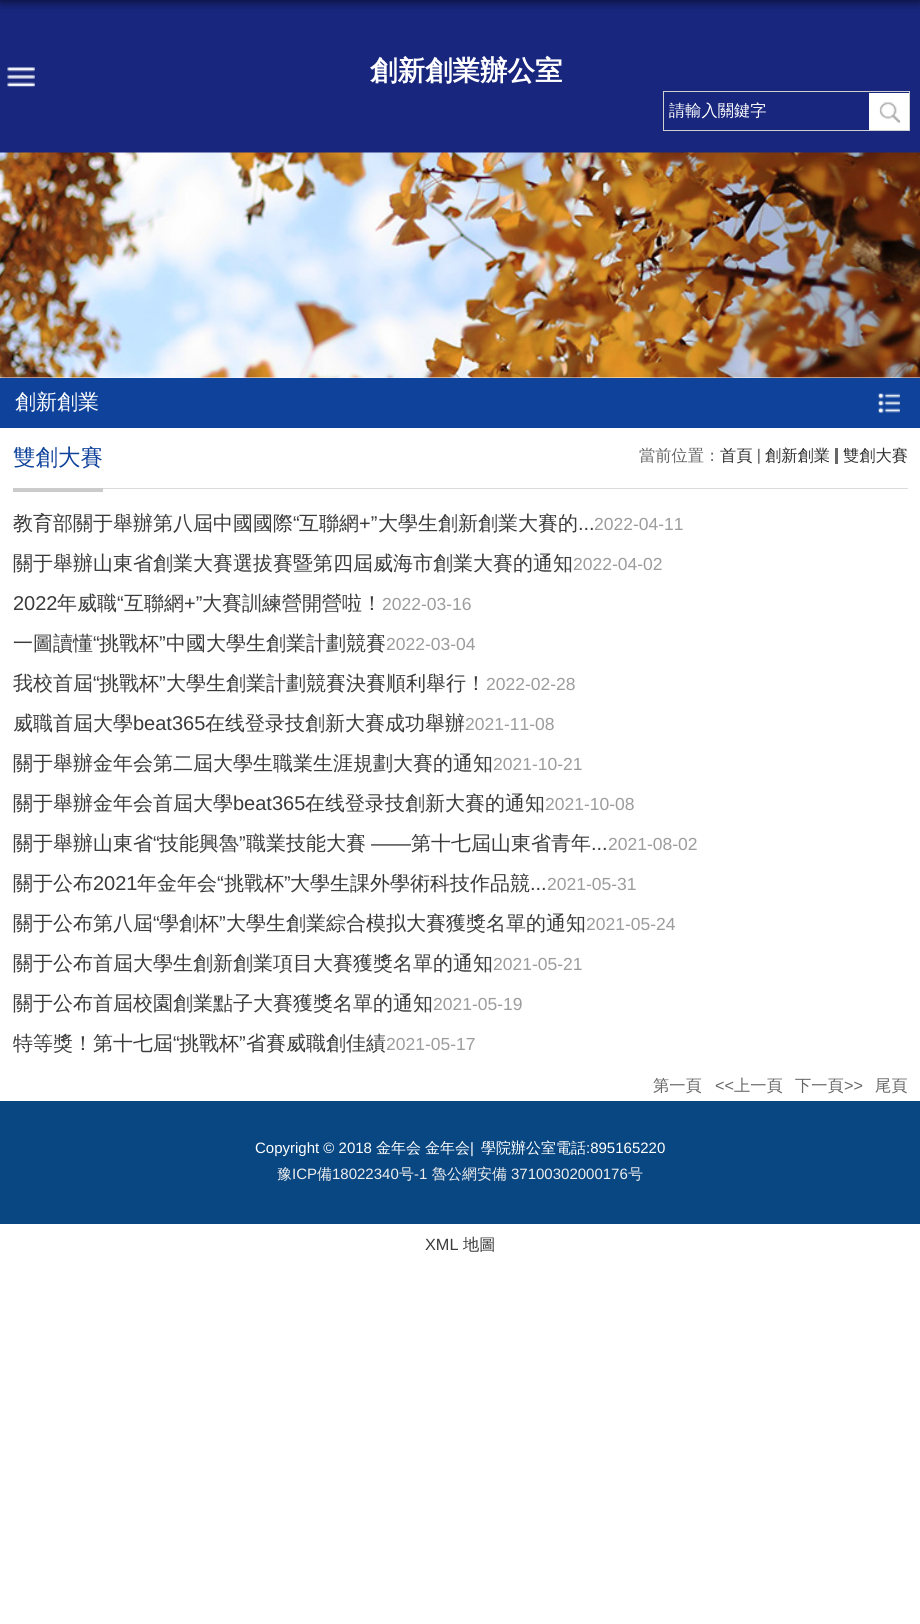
#include <cairo.h>
#include <math.h>
#include <stddef.h>


static void set_color(cairo_t *cr, unsigned color) {
    cairo_set_source_rgb(cr, (color >> 16) / 255.0, (color >> 8 & 255) / 255.0, (color & 255) / 255.0);
}

static void draw_text(cairo_t *cr, double x, double y, const char *s, const char *family, double size, int italic, int bold, unsigned color) {
    cairo_select_font_face(cr, family, italic ? CAIRO_FONT_SLANT_ITALIC : CAIRO_FONT_SLANT_NORMAL,
        bold ? CAIRO_FONT_WEIGHT_BOLD : CAIRO_FONT_WEIGHT_NORMAL);
    cairo_set_font_size(cr, size);
    set_color(cr, color);
    cairo_move_to(cr, x, y);
    cairo_show_text(cr, s);
}

static void fill_rect(cairo_t *cr, double x, double y, double w, double h, unsigned color) {
    set_color(cr, color);
    cairo_rectangle(cr, x, y, w, h);
    cairo_fill(cr);
}

static void rounded_rect(cairo_t *cr, double x, double y, double w, double h, double r) {
    cairo_new_sub_path(cr);
    cairo_arc(cr, x + w - r, y + h - r, r, 0, M_PI / 2);
    cairo_arc(cr, x + r, y + h - r, r, M_PI / 2, M_PI);
    cairo_arc(cr, x + r, y + r, r, M_PI, 1.5 * M_PI);
    cairo_arc(cr, x + w - r, y + r, r, 1.5 * M_PI, 2 * M_PI);
    cairo_close_path(cr);
}

static void draw_shadow(cairo_t *cr, double x, double y, double w, double h, double r, double blur, double alpha) {
    cairo_push_group_with_content(cr, CAIRO_CONTENT_ALPHA);
    cairo_set_operator(cr, CAIRO_OPERATOR_SOURCE);
    for (int i = 15; i >= -15 && fmin(w, h) + blur * i / 3 > 0; i -= 2) {
        double e = blur * i / 6;
        cairo_set_source_rgba(cr, 0, 0, 0, alpha * erfc((i - 1) / 8.5) / 2);
        rounded_rect(cr, x - e, y - e, w + 2 * e, h + 2 * e, fmax(0, fmin(r + e + blur * .6, fmin(w, h) / 2 + e)));
        cairo_fill(cr);
    }
    cairo_pattern_t *soft = cairo_pop_group(cr);
    cairo_mask(cr, soft);
    cairo_pattern_destroy(soft);
}

static void draw_image(cairo_t *cr, const char *path, double x, double y, double w, double h) {
    cairo_surface_t *image = cairo_image_surface_create_from_png(path);
    cairo_save(cr);
    cairo_set_source_surface(cr, image, x, y);
    cairo_rectangle(cr, x, y, w, h);
    cairo_fill(cr);
    cairo_restore(cr);
    cairo_surface_destroy(image);
}

int main(void) {
    cairo_surface_t *surface = cairo_image_surface_create(CAIRO_FORMAT_RGB24, 920, 1624);
    cairo_t *cr = cairo_create(surface);
    cairo_font_options_t *options = cairo_font_options_create();
    cairo_font_options_set_hint_metrics(options, CAIRO_HINT_METRICS_OFF);
    cairo_font_options_set_hint_style(options, CAIRO_HINT_STYLE_NONE);
    cairo_set_font_options(cr, options);
    cairo_set_miter_limit(cr, 4);
    set_color(cr, 0xFFFFFF);
    cairo_paint(cr);
    fill_rect(cr, 0, 0, 920, 153, 0x18267E);
    set_color(cr, 0x000000);
    draw_shadow(cr, 0, -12, 920, 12, 0, 6, 0.8);
    draw_image(cr, "assets/img1.png", 7, 67, 28, 20);
    draw_text(cr, 370, 80, "創新創業辦公室", "WenQuanYi Zen Hei", 27.5, 0, 1, 0xFFFFFF);
    cairo_rectangle(cr, 663.5, 91.5, 246, 39);
    set_color(cr, 0xD0D0D0);
    cairo_set_line_width(cr, 1);
    cairo_stroke(cr);
    draw_text(cr, 669, 116, "請輸入關鍵字", "WenQuanYi Zen Hei Medium", 16.25, 0, 0, 0xFFFFFF);
    fill_rect(cr, 869, 93, 40, 37, 0xFFFFFF);
    draw_image(cr, "assets/img2.png", 879, 102, 22, 21);
    draw_image(cr, "assets/img3.png", 0, 152, 920, 226);
    fill_rect(cr, 0, 378, 920, 50, 0x0F429B);
    draw_text(cr, 15, 409, "創新創業", "WenQuanYi Zen Hei Medium", 21, 0, 0, 0xFFFFFF);
    draw_image(cr, "assets/img4.png", 878, 393, 22, 20);
    fill_rect(cr, 103, 488, 805, 1, 0xDBDBDB);
    fill_rect(cr, 13, 488, 90, 4, 0xCBCBCB);
    draw_text(cr, 13, 465, "雙創大賽", "WenQuanYi Zen Hei Medium", 22.5, 0, 0, 0x0F429B);
    draw_text(cr, 639, 461, "當前位置：", "WenQuanYi Zen Hei Medium", 16.25, 0, 0, 0x666666);
    draw_text(cr, 720, 461, "首頁", "WenQuanYi Zen Hei Medium", 16.25, 0, 0, 0x2F2F2F);
    draw_image(cr, "assets/img5.png", 758, 448, 2, 16);
    draw_text(cr, 765, 461, "創新創業", "WenQuanYi Zen Hei Medium", 16.25, 0, 0, 0x2F2F2F);
    fill_rect(cr, 835, 448, 3, 16, 0x686868);
    draw_text(cr, 843, 461, "雙創大賽", "WenQuanYi Zen Hei Medium", 16.25, 0, 0, 0x2F2F2F);
    draw_text(cr, 13, 530, "教育部關于舉辦第八屆中國國際", "WenQuanYi Zen Hei Medium", 20, 0, 0, 0x3B3B3B);
    draw_text(cr, 293, 530, "“", "Liberation Sans", 20, 0, 0, 0x3B3B3B);
    draw_text(cr, 299, 530, "互聯網", "WenQuanYi Zen Hei Medium", 20, 0, 0, 0x3B3B3B);
    draw_text(cr, 359, 530, "+”", "Liberation Sans", 20, 0, 0, 0x3B3B3B);
    draw_text(cr, 378, 530, "大學生創新創業大賽的", "WenQuanYi Zen Hei Medium", 20, 0, 0, 0x3B3B3B);
    draw_text(cr, 578, 530, "...", "Liberation Sans", 20, 0, 0, 0x3B3B3B);
    draw_text(cr, 594, 530, "2022-04-11", "Liberation Sans", 17.5, 0, 0, 0x9C9C9C);
    draw_text(cr, 13, 570, "關于舉辦山東省創業大賽選拔賽暨第四屆威海市創業大賽的通知", "WenQuanYi Zen Hei Medium", 20, 0, 0, 0x3B3B3B);
    draw_text(cr, 573, 570, "2022-04-02", "Liberation Sans", 17.5, 0, 0, 0x9C9C9C);
    draw_text(cr, 13, 610, "2022", "Liberation Sans", 20, 0, 0, 0x3B3B3B);
    draw_text(cr, 57, 610, "年威職", "WenQuanYi Zen Hei Medium", 20, 0, 0, 0x3B3B3B);
    draw_text(cr, 117, 610, "“", "Liberation Sans", 20, 0, 0, 0x3B3B3B);
    draw_text(cr, 124, 610, "互聯網", "WenQuanYi Zen Hei Medium", 20, 0, 0, 0x3B3B3B);
    draw_text(cr, 184, 610, "+”", "Liberation Sans", 20, 0, 0, 0x3B3B3B);
    draw_text(cr, 202, 610, "大賽訓練營開營啦！", "WenQuanYi Zen Hei Medium", 20, 0, 0, 0x3B3B3B);
    draw_text(cr, 382, 610, "2022-03-16", "Liberation Sans", 17.5, 0, 0, 0x9C9C9C);
    draw_text(cr, 13, 650, "一圖讀懂", "WenQuanYi Zen Hei Medium", 20, 0, 0, 0x3B3B3B);
    draw_text(cr, 93, 650, "“", "Liberation Sans", 20, 0, 0, 0x3B3B3B);
    draw_text(cr, 99, 650, "挑戰杯", "WenQuanYi Zen Hei Medium", 20, 0, 0, 0x3B3B3B);
    draw_text(cr, 159, 650, "”", "Liberation Sans", 20, 0, 0, 0x3B3B3B);
    draw_text(cr, 166, 650, "中國大學生創業計劃競賽", "WenQuanYi Zen Hei Medium", 20, 0, 0, 0x3B3B3B);
    draw_text(cr, 386, 650, "2022-03-04", "Liberation Sans", 17.5, 0, 0, 0x9C9C9C);
    draw_text(cr, 13, 690, "我校首屆", "WenQuanYi Zen Hei Medium", 20, 0, 0, 0x3B3B3B);
    draw_text(cr, 93, 690, "“", "Liberation Sans", 20, 0, 0, 0x3B3B3B);
    draw_text(cr, 99, 690, "挑戰杯", "WenQuanYi Zen Hei Medium", 20, 0, 0, 0x3B3B3B);
    draw_text(cr, 159, 690, "”", "Liberation Sans", 20, 0, 0, 0x3B3B3B);
    draw_text(cr, 166, 690, "大學生創業計劃競賽決賽順利舉行！", "WenQuanYi Zen Hei Medium", 20, 0, 0, 0x3B3B3B);
    draw_text(cr, 486, 690, "2022-02-28", "Liberation Sans", 17.5, 0, 0, 0x9C9C9C);
    draw_text(cr, 13, 730, "威職首屆大學", "WenQuanYi Zen Hei Medium", 20, 0, 0, 0x3B3B3B);
    draw_text(cr, 133, 730, "beat365", "Liberation Sans", 20, 0, 0, 0x3B3B3B);
    draw_text(cr, 205, 730, "在线登录技創新大賽成功舉辦", "WenQuanYi Zen Hei Medium", 20, 0, 0, 0x3B3B3B);
    draw_text(cr, 465, 730, "2021-11-08", "Liberation Sans", 17.5, 0, 0, 0x9C9C9C);
    draw_text(cr, 13, 770, "關于舉辦金年会第二屆大學生職業生涯規劃大賽的通知", "WenQuanYi Zen Hei Medium", 20, 0, 0, 0x3B3B3B);
    draw_text(cr, 493, 770, "2021-10-21", "Liberation Sans", 17.5, 0, 0, 0x9C9C9C);
    draw_text(cr, 13, 810, "關于舉辦金年会首屆大學", "WenQuanYi Zen Hei Medium", 20, 0, 0, 0x3B3B3B);
    draw_text(cr, 233, 810, "beat365", "Liberation Sans", 20, 0, 0, 0x3B3B3B);
    draw_text(cr, 305, 810, "在线登录技創新大賽的通知", "WenQuanYi Zen Hei Medium", 20, 0, 0, 0x3B3B3B);
    draw_text(cr, 545, 810, "2021-10-08", "Liberation Sans", 17.5, 0, 0, 0x9C9C9C);
    draw_text(cr, 13, 850, "關于舉辦山東省", "WenQuanYi Zen Hei Medium", 20, 0, 0, 0x3B3B3B);
    draw_text(cr, 153, 850, "“", "Liberation Sans", 20, 0, 0, 0x3B3B3B);
    draw_text(cr, 159, 850, "技能興魯", "WenQuanYi Zen Hei Medium", 20, 0, 0, 0x3B3B3B);
    draw_text(cr, 239, 850, "”", "Liberation Sans", 20, 0, 0, 0x3B3B3B);
    draw_text(cr, 246, 850, "職業技能大賽", "WenQuanYi Zen Hei Medium", 20, 0, 0, 0x3B3B3B);
    draw_text(cr, 371, 850, "——", "Liberation Sans", 20, 0, 0, 0x3B3B3B);
    draw_text(cr, 411, 850, "第十七屆山東省青年", "WenQuanYi Zen Hei Medium", 20, 0, 0, 0x3B3B3B);
    draw_text(cr, 591, 850, "...", "Liberation Sans", 20, 0, 0, 0x3B3B3B);
    draw_text(cr, 608, 850, "2021-08-02", "Liberation Sans", 17.5, 0, 0, 0x9C9C9C);
    draw_text(cr, 13, 890, "關于公布", "WenQuanYi Zen Hei Medium", 20, 0, 0, 0x3B3B3B);
    draw_text(cr, 93, 890, "2021", "Liberation Sans", 20, 0, 0, 0x3B3B3B);
    draw_text(cr, 137, 890, "年金年会", "WenQuanYi Zen Hei Medium", 20, 0, 0, 0x3B3B3B);
    draw_text(cr, 217, 890, "“", "Liberation Sans", 20, 0, 0, 0x3B3B3B);
    draw_text(cr, 224, 890, "挑戰杯", "WenQuanYi Zen Hei Medium", 20, 0, 0, 0x3B3B3B);
    draw_text(cr, 284, 890, "”", "Liberation Sans", 20, 0, 0, 0x3B3B3B);
    draw_text(cr, 290, 890, "大學生課外學術科技作品競", "WenQuanYi Zen Hei Medium", 20, 0, 0, 0x3B3B3B);
    draw_text(cr, 530, 890, "...", "Liberation Sans", 20, 0, 0, 0x3B3B3B);
    draw_text(cr, 547, 890, "2021-05-31", "Liberation Sans", 17.5, 0, 0, 0x9C9C9C);
    draw_text(cr, 13, 930, "關于公布第八屆", "WenQuanYi Zen Hei Medium", 20, 0, 0, 0x3B3B3B);
    draw_text(cr, 153, 930, "“", "Liberation Sans", 20, 0, 0, 0x3B3B3B);
    draw_text(cr, 159, 930, "學創杯", "WenQuanYi Zen Hei Medium", 20, 0, 0, 0x3B3B3B);
    draw_text(cr, 219, 930, "”", "Liberation Sans", 20, 0, 0, 0x3B3B3B);
    draw_text(cr, 226, 930, "大學生創業綜合模拟大賽獲獎名單的通知", "WenQuanYi Zen Hei Medium", 20, 0, 0, 0x3B3B3B);
    draw_text(cr, 586, 930, "2021-05-24", "Liberation Sans", 17.5, 0, 0, 0x9C9C9C);
    draw_text(cr, 13, 970, "關于公布首屆大學生創新創業項目大賽獲獎名單的通知", "WenQuanYi Zen Hei Medium", 20, 0, 0, 0x3B3B3B);
    draw_text(cr, 493, 970, "2021-05-21", "Liberation Sans", 17.5, 0, 0, 0x9C9C9C);
    draw_text(cr, 13, 1010, "關于公布首屆校園創業點子大賽獲獎名單的通知", "WenQuanYi Zen Hei Medium", 20, 0, 0, 0x3B3B3B);
    draw_text(cr, 433, 1010, "2021-05-19", "Liberation Sans", 17.5, 0, 0, 0x9C9C9C);
    draw_text(cr, 13, 1050, "特等獎！第十七屆", "WenQuanYi Zen Hei Medium", 20, 0, 0, 0x3B3B3B);
    draw_text(cr, 173, 1050, "“", "Liberation Sans", 20, 0, 0, 0x3B3B3B);
    draw_text(cr, 179, 1050, "挑戰杯", "WenQuanYi Zen Hei Medium", 20, 0, 0, 0x3B3B3B);
    draw_text(cr, 239, 1050, "”", "Liberation Sans", 20, 0, 0, 0x3B3B3B);
    draw_text(cr, 246, 1050, "省賽威職創佳績", "WenQuanYi Zen Hei Medium", 20, 0, 0, 0x3B3B3B);
    draw_text(cr, 386, 1050, "2021-05-17", "Liberation Sans", 17.5, 0, 0, 0x9C9C9C);
    draw_text(cr, 653, 1091, "第一頁", "WenQuanYi Zen Hei Medium", 16.25, 0, 0, 0x666666);
    draw_text(cr, 715, 1091, "<<", "Liberation Sans", 16.25, 0, 0, 0x666666);
    draw_text(cr, 734, 1091, "上一頁", "WenQuanYi Zen Hei Medium", 16.25, 0, 0, 0x666666);
    draw_text(cr, 795, 1091, "下一頁", "WenQuanYi Zen Hei Medium", 16.25, 0, 0, 0x666666);
    draw_text(cr, 844, 1091, ">>", "Liberation Sans", 16.25, 0, 0, 0x666666);
    draw_text(cr, 875, 1091, "尾頁", "WenQuanYi Zen Hei Medium", 16.25, 0, 0, 0x666666);
    fill_rect(cr, 0, 1101, 920, 123, 0x094782);
    draw_text(cr, 255, 1153, "Copyright © 2018", "Liberation Sans", 15, 0, 0, 0xFFFFFF);
    draw_text(cr, 376, 1153, "金年会", "WenQuanYi Zen Hei Medium", 15, 0, 0, 0xFFFFFF);
    draw_text(cr, 425, 1153, "金年会", "WenQuanYi Zen Hei Medium", 15, 0, 0, 0xFFFFFF);
    draw_text(cr, 470, 1153, "|", "Liberation Sans", 15, 0, 0, 0xFFFFFF);
    draw_text(cr, 481, 1153, "學院辦公室電話", "WenQuanYi Zen Hei Medium", 15, 0, 0, 0xFFFFFF);
    draw_text(cr, 586, 1153, ":895165220", "Liberation Sans", 15, 0, 0, 0xFFFFFF);
    draw_text(cr, 277, 1179, "豫", "WenQuanYi Zen Hei Medium", 15, 0, 0, 0xEEEEEE);
    draw_text(cr, 292, 1179, "ICP", "Liberation Sans", 15, 0, 0, 0xEEEEEE);
    draw_text(cr, 317, 1179, "備", "WenQuanYi Zen Hei Medium", 15, 0, 0, 0xEEEEEE);
    draw_text(cr, 332, 1179, "18022340", "Liberation Sans", 15, 0, 0, 0xEEEEEE);
    draw_text(cr, 399, 1179, "号", "WenQuanYi Zen Hei Medium", 15, 0, 0, 0xEEEEEE);
    draw_text(cr, 414, 1179, "-1", "Liberation Sans", 15, 0, 0, 0xEEEEEE);
    draw_text(cr, 432, 1179, "魯公網安備", "WenQuanYi Zen Hei Medium", 15, 0, 0, 0xEEEEEE);
    draw_text(cr, 511, 1179, "37100302000176", "Liberation Sans", 15, 0, 0, 0xEEEEEE);
    draw_text(cr, 628, 1179, "号", "WenQuanYi Zen Hei Medium", 15, 0, 0, 0xEEEEEE);
    draw_text(cr, 425, 1250, "XML", "Liberation Sans", 16.25, 0, 0, 0x3B3B3B);
    draw_text(cr, 463, 1250, "地圖", "WenQuanYi Zen Hei Medium", 16.25, 0, 0, 0x3B3B3B);
    cairo_surface_write_to_png(surface, "output.png");
    cairo_font_options_destroy(options);
    cairo_destroy(cr);
    cairo_surface_destroy(surface);
    return 0;
}
